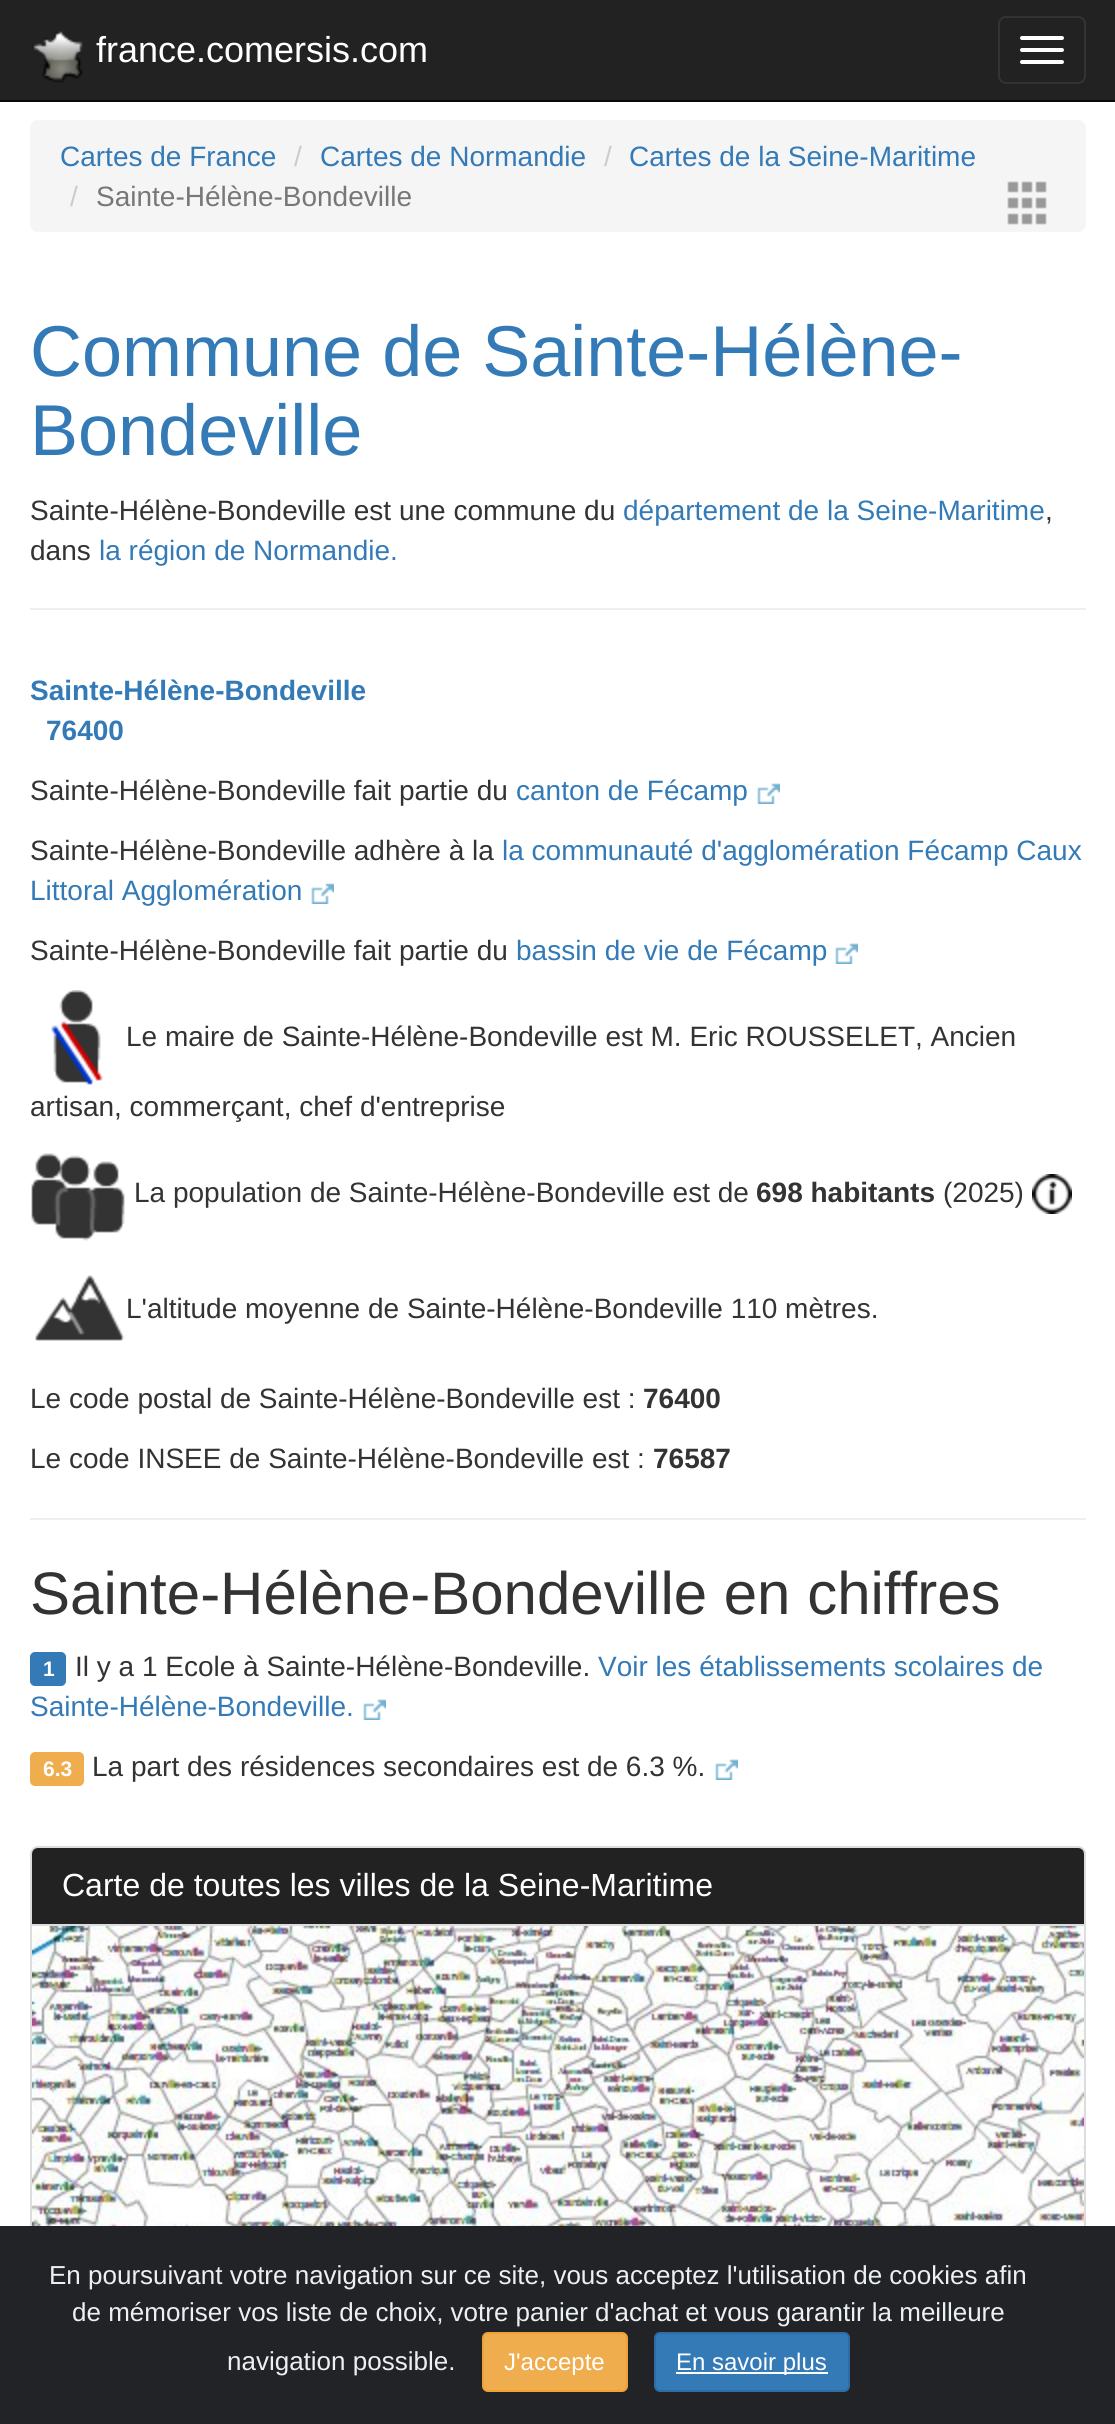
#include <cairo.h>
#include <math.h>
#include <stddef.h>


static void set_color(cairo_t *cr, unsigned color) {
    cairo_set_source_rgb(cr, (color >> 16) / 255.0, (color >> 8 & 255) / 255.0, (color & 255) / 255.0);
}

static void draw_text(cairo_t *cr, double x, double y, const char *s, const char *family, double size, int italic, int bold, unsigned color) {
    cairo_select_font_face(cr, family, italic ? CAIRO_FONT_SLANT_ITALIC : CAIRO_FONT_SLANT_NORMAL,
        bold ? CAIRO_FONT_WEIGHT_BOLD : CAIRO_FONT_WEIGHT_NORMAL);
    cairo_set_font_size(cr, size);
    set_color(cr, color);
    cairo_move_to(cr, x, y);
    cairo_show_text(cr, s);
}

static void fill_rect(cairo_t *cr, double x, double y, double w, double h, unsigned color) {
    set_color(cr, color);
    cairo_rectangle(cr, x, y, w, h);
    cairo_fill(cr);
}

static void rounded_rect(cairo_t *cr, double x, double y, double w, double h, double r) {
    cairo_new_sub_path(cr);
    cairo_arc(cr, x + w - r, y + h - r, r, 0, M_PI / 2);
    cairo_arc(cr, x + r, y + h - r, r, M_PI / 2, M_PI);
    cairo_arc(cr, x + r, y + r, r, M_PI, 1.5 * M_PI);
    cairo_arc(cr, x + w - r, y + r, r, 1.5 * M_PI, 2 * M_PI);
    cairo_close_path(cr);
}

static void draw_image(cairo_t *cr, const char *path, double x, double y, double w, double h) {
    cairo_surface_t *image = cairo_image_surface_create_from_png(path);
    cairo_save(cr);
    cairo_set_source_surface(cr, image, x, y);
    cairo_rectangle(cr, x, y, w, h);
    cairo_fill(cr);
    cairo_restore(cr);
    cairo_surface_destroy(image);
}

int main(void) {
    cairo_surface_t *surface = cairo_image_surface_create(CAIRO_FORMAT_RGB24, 1115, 2424);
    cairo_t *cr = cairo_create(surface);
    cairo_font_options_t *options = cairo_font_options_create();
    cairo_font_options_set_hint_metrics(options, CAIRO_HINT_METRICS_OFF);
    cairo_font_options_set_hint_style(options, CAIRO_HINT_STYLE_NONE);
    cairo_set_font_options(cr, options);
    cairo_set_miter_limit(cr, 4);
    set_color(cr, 0xFFFFFF);
    cairo_paint(cr);
    fill_rect(cr, 0, 0, 1115, 100, 0x222222);
    fill_rect(cr, 0, 100, 1115, 2, 0x080808);
    draw_image(cr, "assets/img1.png", 32, 31, 51, 52);
    draw_text(cr, 96, 62, "france.comersis.com", "Liberation Sans", 36, 0, 0, 0xFFFFFF);
    rounded_rect(cr, 999, 17, 86, 66, 7);
    set_color(cr, 0x333333);
    cairo_stroke(cr);
    set_color(cr, 0xFFFFFF);
    rounded_rect(cr, 1020, 36, 44, 4, 2);
    cairo_fill(cr);
    rounded_rect(cr, 1020, 48, 44, 4, 2);
    cairo_fill(cr);
    rounded_rect(cr, 1020, 60, 44, 4, 2);
    cairo_fill(cr);
    set_color(cr, 0xF5F5F5);
    rounded_rect(cr, 30, 120, 1056, 112, 8);
    cairo_fill(cr);
    draw_text(cr, 60, 166, "Cartes de France", "Liberation Sans", 28, 0, 0, 0x337AB7);
    draw_text(cr, 294, 166, "/", "Liberation Sans", 28, 0, 0, 0xCCCCCC);
    draw_text(cr, 320, 166, "Cartes de Normandie", "Liberation Sans", 28, 0, 0, 0x337AB7);
    draw_text(cr, 604, 166, "/", "Liberation Sans", 28, 0, 0, 0xCCCCCC);
    draw_text(cr, 629, 166, "Cartes de la Seine-Maritime", "Liberation Sans", 28, 0, 0, 0x337AB7);
    draw_text(cr, 70, 206, "/", "Liberation Sans", 28, 0, 0, 0xCCCCCC);
    draw_text(cr, 96, 206, "Sainte-Hélène-Bondeville", "Liberation Sans", 28, 0, 0, 0x777777);
    draw_image(cr, "assets/img2.png", 1007, 181, 40, 44);
    fill_rect(cr, 30, 608, 1056, 2, 0xEEEEEE);
    draw_text(cr, 30, 376, "Commune de Sainte-Hélène-", "Liberation Sans", 72, 0, 0, 0x337AB7);
    draw_text(cr, 30, 455, "Bondeville", "Liberation Sans", 72, 0, 0, 0x337AB7);
    draw_text(cr, 30, 520, "Sainte-Hélène-Bondeville est une commune du", "Liberation Sans", 28, 0, 0, 0x333333);
    draw_text(cr, 623, 520, "département de la Seine-Maritime", "Liberation Sans", 28, 0, 0, 0x337AB7);
    draw_text(cr, 1045, 520, ",", "Liberation Sans", 28, 0, 0, 0x333333);
    draw_text(cr, 30, 560, "dans", "Liberation Sans", 28, 0, 0, 0x333333);
    draw_text(cr, 99, 560, "la région de Normandie.", "Liberation Sans", 28, 0, 0, 0x337AB7);
    draw_text(cr, 30, 700, "Sainte-Hélène-Bondeville", "Liberation Sans", 28, 0, 1, 0x337AB7);
    draw_text(cr, 46, 740, "76400", "Liberation Sans", 28, 0, 1, 0x337AB7);
    draw_text(cr, 30, 800, "Sainte-Hélène-Bondeville fait partie du", "Liberation Sans", 28, 0, 0, 0x333333);
    draw_text(cr, 516, 800, "canton de Fécamp", "Liberation Sans", 28, 0, 0, 0x337AB7);
    draw_image(cr, "assets/img3.png", 757, 783, 23, 21);
    draw_text(cr, 30, 860, "Sainte-Hélène-Bondeville adhère à la", "Liberation Sans", 28, 0, 0, 0x333333);
    draw_text(cr, 502, 860, "la communauté d'agglomération Fécamp Caux", "Liberation Sans", 28, 0, 0, 0x337AB7);
    draw_text(cr, 30, 900, "Littoral Agglomération", "Liberation Sans", 28, 0, 0, 0x337AB7);
    draw_image(cr, "assets/img3.png", 311, 883, 23, 21);
    draw_text(cr, 30, 960, "Sainte-Hélène-Bondeville fait partie du", "Liberation Sans", 28, 0, 0, 0x333333);
    draw_text(cr, 516, 960, "bassin de vie de Fécamp", "Liberation Sans", 28, 0, 0, 0x337AB7);
    draw_image(cr, "assets/img3.png", 835, 943, 23, 21);
    draw_image(cr, "assets/img4.png", 51, 990, 52, 95);
    draw_text(cr, 126, 1046, "Le maire de Sainte-Hélène-Bondeville est M. Eric ROUSSELET, Ancien", "Liberation Sans", 28, 0, 0, 0x333333);
    draw_text(cr, 30, 1116, "artisan, commerçant, chef d'entreprise", "Liberation Sans", 28, 0, 0, 0x333333);
    draw_image(cr, "assets/img5.png", 31, 1153, 94, 88);
    draw_text(cr, 134, 1202, "La population de Sainte-Hélène-Bondeville est de", "Liberation Sans", 28, 0, 0, 0x333333);
    draw_text(cr, 756, 1202, "698 habitants", "Liberation Sans", 28, 0, 1, 0x333333);
    draw_text(cr, 943, 1202, "(2025)", "Liberation Sans", 28, 0, 0, 0x333333);
    draw_image(cr, "assets/img6.png", 1032, 1174, 40, 40);
    draw_image(cr, "assets/img7.png", 35, 1275, 90, 66);
    draw_text(cr, 126, 1318, "L'altitude moyenne de Sainte-Hélène-Bondeville 110 mètres.", "Liberation Sans", 28, 0, 0, 0x333333);
    draw_text(cr, 30, 1408, "Le code postal de Sainte-Hélène-Bondeville est :", "Liberation Sans", 28, 0, 0, 0x333333);
    draw_text(cr, 643, 1408, "76400", "Liberation Sans", 28, 0, 1, 0x333333);
    draw_text(cr, 30, 1468, "Le code INSEE de Sainte-Hélène-Bondeville est :", "Liberation Sans", 28, 0, 0, 0x333333);
    draw_text(cr, 653, 1468, "76587", "Liberation Sans", 28, 0, 1, 0x333333);
    fill_rect(cr, 30, 1518, 1056, 2, 0xEEEEEE);
    draw_text(cr, 30, 1614, "Sainte-Hélène-Bondeville en chiffres", "Liberation Sans", 60, 0, 0, 0x333333);
    set_color(cr, 0x337AB7);
    rounded_rect(cr, 30, 1652, 36, 34, 5);
    cairo_fill(cr);
    draw_text(cr, 43, 1676, "1", "Liberation Sans", 21, 0, 1, 0xFFFFFF);
    draw_text(cr, 75, 1676, "Il y a 1 Ecole à Sainte-Hélène-Bondeville.", "Liberation Sans", 28, 0, 0, 0x333333);
    draw_text(cr, 598, 1676, "Voir les établissements scolaires de", "Liberation Sans", 28, 0, 0, 0x337AB7);
    draw_text(cr, 30, 1716, "Sainte-Hélène-Bondeville.", "Liberation Sans", 28, 0, 0, 0x337AB7);
    draw_image(cr, "assets/img3.png", 363, 1699, 23, 21);
    set_color(cr, 0xF0AD4E);
    rounded_rect(cr, 30, 1752, 54, 34, 5);
    cairo_fill(cr);
    draw_text(cr, 43, 1776, "6.3", "Liberation Sans", 21, 0, 1, 0xFFFFFF);
    draw_text(cr, 92, 1776, "La part des résidences secondaires est de 6.3 %.", "Liberation Sans", 28, 0, 0, 0x333333);
    draw_image(cr, "assets/img3.png", 715, 1759, 23, 21);
    rounded_rect(cr, 31, 1847, 1054, 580, 7);
    set_color(cr, 0xDDDDDD);
    cairo_stroke(cr);
    set_color(cr, 0x222222);
    cairo_new_path(cr);
    cairo_move_to(cr, 38, 1848);
    cairo_line_to(cr, 1078, 1848);
    cairo_curve_to(cr, 1081.5, 1848, 1084, 1850.5, 1084, 1854);
    cairo_line_to(cr, 1084, 1926);
    cairo_line_to(cr, 32, 1926);
    cairo_line_to(cr, 32, 1854);
    cairo_curve_to(cr, 32, 1850.5, 34.5, 1848, 38, 1848);
    cairo_close_path(cr);
    cairo_fill(cr);
    fill_rect(cr, 32, 1924, 1052, 2, 0xDDDDDD);
    draw_text(cr, 62, 1896, "Carte de toutes les villes de la Seine-Maritime", "Liberation Sans", 32, 0, 0, 0xFFFFFF);
    draw_image(cr, "assets/img8.png", 32, 1926, 1052, 300);
    fill_rect(cr, 0, 2226, 1115, 198, 0x212327);
    draw_text(cr, 49, 2284, "En poursuivant votre navigation sur ce site, vous acceptez l'utilisation de cookies afin", "Liberation Sans", 26, 0, 0, 0xECF0F1);
    draw_text(cr, 72, 2321, "de mémoriser vos liste de choix, votre panier d'achat et vous garantir la meilleure", "Liberation Sans", 26, 0, 0, 0xECF0F1);
    draw_text(cr, 227, 2370, "navigation possible.", "Liberation Sans", 26, 0, 0, 0xECF0F1);
    set_color(cr, 0xF0AD4E);
    rounded_rect(cr, 483, 2333, 144, 58, 5);
    cairo_fill_preserve(cr);
    set_color(cr, 0xEEA236);
    cairo_stroke(cr);
    draw_text(cr, 504, 2370, "J'accepte", "Liberation Sans", 24, 0, 0, 0xFFFFFF);
    set_color(cr, 0x337AB7);
    rounded_rect(cr, 655, 2333, 194, 58, 5);
    cairo_fill_preserve(cr);
    set_color(cr, 0x2E6DA4);
    cairo_stroke(cr);
    fill_rect(cr, 676, 2372, 152, 2, 0xFFFFFF);
    draw_text(cr, 676, 2370, "En savoir plus", "Liberation Sans", 24, 0, 0, 0xFFFFFF);
    cairo_surface_write_to_png(surface, "output.png");
    cairo_font_options_destroy(options);
    cairo_destroy(cr);
    cairo_surface_destroy(surface);
    return 0;
}
